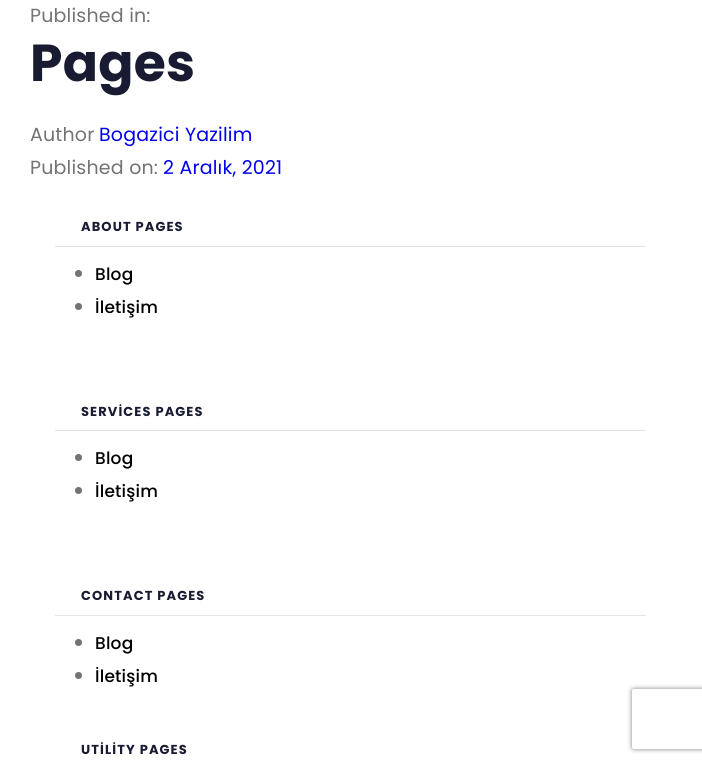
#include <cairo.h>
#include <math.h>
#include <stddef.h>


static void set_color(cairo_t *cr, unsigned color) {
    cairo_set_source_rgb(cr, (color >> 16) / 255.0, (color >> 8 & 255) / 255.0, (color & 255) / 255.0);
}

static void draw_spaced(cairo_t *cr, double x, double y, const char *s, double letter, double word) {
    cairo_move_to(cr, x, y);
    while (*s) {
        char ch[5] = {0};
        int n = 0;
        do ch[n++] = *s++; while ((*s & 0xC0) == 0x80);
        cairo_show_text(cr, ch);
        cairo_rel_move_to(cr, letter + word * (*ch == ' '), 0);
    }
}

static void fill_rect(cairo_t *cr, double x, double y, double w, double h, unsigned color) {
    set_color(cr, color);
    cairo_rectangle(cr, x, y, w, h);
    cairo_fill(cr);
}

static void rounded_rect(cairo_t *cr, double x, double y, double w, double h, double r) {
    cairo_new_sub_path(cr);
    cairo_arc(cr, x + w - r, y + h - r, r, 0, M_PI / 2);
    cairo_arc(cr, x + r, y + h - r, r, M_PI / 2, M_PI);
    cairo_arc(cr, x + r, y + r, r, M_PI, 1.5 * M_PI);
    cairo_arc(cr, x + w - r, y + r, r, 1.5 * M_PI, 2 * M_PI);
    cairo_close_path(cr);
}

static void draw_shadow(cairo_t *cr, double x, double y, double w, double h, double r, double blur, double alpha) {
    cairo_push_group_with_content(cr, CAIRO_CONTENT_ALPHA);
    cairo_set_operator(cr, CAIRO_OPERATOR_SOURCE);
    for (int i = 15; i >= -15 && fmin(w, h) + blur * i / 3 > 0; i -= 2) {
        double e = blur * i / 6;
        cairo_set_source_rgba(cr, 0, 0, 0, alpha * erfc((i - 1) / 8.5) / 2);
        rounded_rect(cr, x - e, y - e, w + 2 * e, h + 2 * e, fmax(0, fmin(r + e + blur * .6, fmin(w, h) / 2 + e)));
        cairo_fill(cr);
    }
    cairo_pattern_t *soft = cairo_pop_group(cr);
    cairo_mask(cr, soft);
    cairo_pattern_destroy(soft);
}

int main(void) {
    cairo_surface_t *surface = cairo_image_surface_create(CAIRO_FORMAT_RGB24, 702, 763);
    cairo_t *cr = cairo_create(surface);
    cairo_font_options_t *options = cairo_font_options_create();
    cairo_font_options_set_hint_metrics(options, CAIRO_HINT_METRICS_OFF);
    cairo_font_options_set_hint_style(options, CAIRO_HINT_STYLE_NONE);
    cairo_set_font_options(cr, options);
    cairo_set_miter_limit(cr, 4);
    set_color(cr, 0xFFFFFF);
    cairo_paint(cr);
    cairo_select_font_face(cr, "Poppins", CAIRO_FONT_SLANT_NORMAL, CAIRO_FONT_WEIGHT_NORMAL);
    cairo_set_font_size(cr, 19);
    set_color(cr, 0x737373);
    draw_spaced(cr, 30, 22, "Published in:", 0.2, 0);
    cairo_select_font_face(cr, "Poppins", CAIRO_FONT_SLANT_NORMAL, CAIRO_FONT_WEIGHT_BOLD);
    cairo_set_font_size(cr, 52);
    set_color(cr, 0x181B31);
    draw_spaced(cr, 30, 81, "Pages", 0.2, 0);
    cairo_select_font_face(cr, "Poppins", CAIRO_FONT_SLANT_NORMAL, CAIRO_FONT_WEIGHT_NORMAL);
    cairo_set_font_size(cr, 19);
    set_color(cr, 0x737373);
    draw_spaced(cr, 30, 141, "Author", 0.2, 0);
    set_color(cr, 0x0000EE);
    draw_spaced(cr, 99, 141, "Bogazici Yazilim", 0.2, 0);
    set_color(cr, 0x737373);
    draw_spaced(cr, 30, 174, "Published on:", 0.2, 0);
    set_color(cr, 0x0000EE);
    draw_spaced(cr, 163, 174, "2 Aralık, 2021", 0.2, 0);
    cairo_select_font_face(cr, "Poppins", CAIRO_FONT_SLANT_NORMAL, CAIRO_FONT_WEIGHT_BOLD);
    cairo_set_font_size(cr, 13);
    set_color(cr, 0x181B31);
    draw_spaced(cr, 81, 231, "ABOUT PAGES", 1.1, 0);
    fill_rect(cr, 55, 246, 591, 1, 0xE3E3E3);
    set_color(cr, 0x737373);
    cairo_new_path(cr);
    cairo_arc(cr, 78.5, 273.5, 3.5, 0, 2 * M_PI);
    cairo_fill(cr);
    cairo_select_font_face(cr, "Poppins Medium", CAIRO_FONT_SLANT_NORMAL, CAIRO_FONT_WEIGHT_NORMAL);
    cairo_set_font_size(cr, 17);
    set_color(cr, 0x000000);
    draw_spaced(cr, 95, 280, "Blog", 0.2, 0);
    set_color(cr, 0x737373);
    cairo_new_path(cr);
    cairo_arc(cr, 78.5, 306.5, 3.5, 0, 2 * M_PI);
    cairo_fill(cr);
    set_color(cr, 0x000000);
    draw_spaced(cr, 95, 313, "İletişim", 0.2, 0);
    cairo_select_font_face(cr, "Poppins", CAIRO_FONT_SLANT_NORMAL, CAIRO_FONT_WEIGHT_BOLD);
    cairo_set_font_size(cr, 13);
    set_color(cr, 0x181B31);
    draw_spaced(cr, 81, 416, "SERVİCES PAGES", 1.1, 0);
    fill_rect(cr, 55, 430, 591, 1, 0xE3E3E3);
    set_color(cr, 0x737373);
    cairo_new_path(cr);
    cairo_arc(cr, 78.5, 457.5, 3.5, 0, 2 * M_PI);
    cairo_fill(cr);
    cairo_select_font_face(cr, "Poppins Medium", CAIRO_FONT_SLANT_NORMAL, CAIRO_FONT_WEIGHT_NORMAL);
    cairo_set_font_size(cr, 17);
    set_color(cr, 0x000000);
    draw_spaced(cr, 95, 464, "Blog", 0.2, 0);
    set_color(cr, 0x737373);
    cairo_new_path(cr);
    cairo_arc(cr, 78.5, 490.5, 3.5, 0, 2 * M_PI);
    cairo_fill(cr);
    set_color(cr, 0x000000);
    draw_spaced(cr, 95, 497, "İletişim", 0.2, 0);
    cairo_select_font_face(cr, "Poppins", CAIRO_FONT_SLANT_NORMAL, CAIRO_FONT_WEIGHT_BOLD);
    cairo_set_font_size(cr, 13);
    set_color(cr, 0x181B31);
    draw_spaced(cr, 81, 600, "CONTACT PAGES", 1.1, 0);
    fill_rect(cr, 55, 615, 591, 1, 0xE3E3E3);
    set_color(cr, 0x737373);
    cairo_new_path(cr);
    cairo_arc(cr, 78.5, 642.5, 3.5, 0, 2 * M_PI);
    cairo_fill(cr);
    cairo_select_font_face(cr, "Poppins Medium", CAIRO_FONT_SLANT_NORMAL, CAIRO_FONT_WEIGHT_NORMAL);
    cairo_set_font_size(cr, 17);
    set_color(cr, 0x000000);
    draw_spaced(cr, 95, 649, "Blog", 0.2, 0);
    set_color(cr, 0x737373);
    cairo_new_path(cr);
    cairo_arc(cr, 78.5, 675.5, 3.5, 0, 2 * M_PI);
    cairo_fill(cr);
    set_color(cr, 0x000000);
    draw_spaced(cr, 95, 682, "İletişim", 0.2, 0);
    cairo_select_font_face(cr, "Poppins", CAIRO_FONT_SLANT_NORMAL, CAIRO_FONT_WEIGHT_BOLD);
    cairo_set_font_size(cr, 13);
    set_color(cr, 0x181B31);
    draw_spaced(cr, 81, 754, "UTİLİTY PAGES", 1.1, 0);
    cairo_save(cr);
    cairo_set_fill_rule(cr, CAIRO_FILL_RULE_EVEN_ODD);
    cairo_new_path(cr);
    cairo_move_to(cr, 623, 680);
    cairo_line_to(cr, 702, 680);
    cairo_line_to(cr, 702, 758);
    cairo_line_to(cr, 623, 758);
    cairo_close_path(cr);
    cairo_move_to(cr, 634, 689);
    cairo_line_to(cr, 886, 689);
    cairo_curve_to(cr, 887, 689, 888, 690, 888, 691);
    cairo_line_to(cr, 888, 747);
    cairo_curve_to(cr, 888, 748, 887, 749, 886, 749);
    cairo_line_to(cr, 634, 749);
    cairo_curve_to(cr, 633, 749, 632, 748, 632, 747);
    cairo_line_to(cr, 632, 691);
    cairo_curve_to(cr, 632, 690, 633, 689, 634, 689);
    cairo_close_path(cr);
    cairo_clip(cr);
    set_color(cr, 0x808080);
    draw_shadow(cr, 632, 689, 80, 60, 2, 2.5, 1);
    cairo_restore(cr);
    cairo_surface_write_to_png(surface, "output.png");
    cairo_font_options_destroy(options);
    cairo_destroy(cr);
    cairo_surface_destroy(surface);
    return 0;
}
